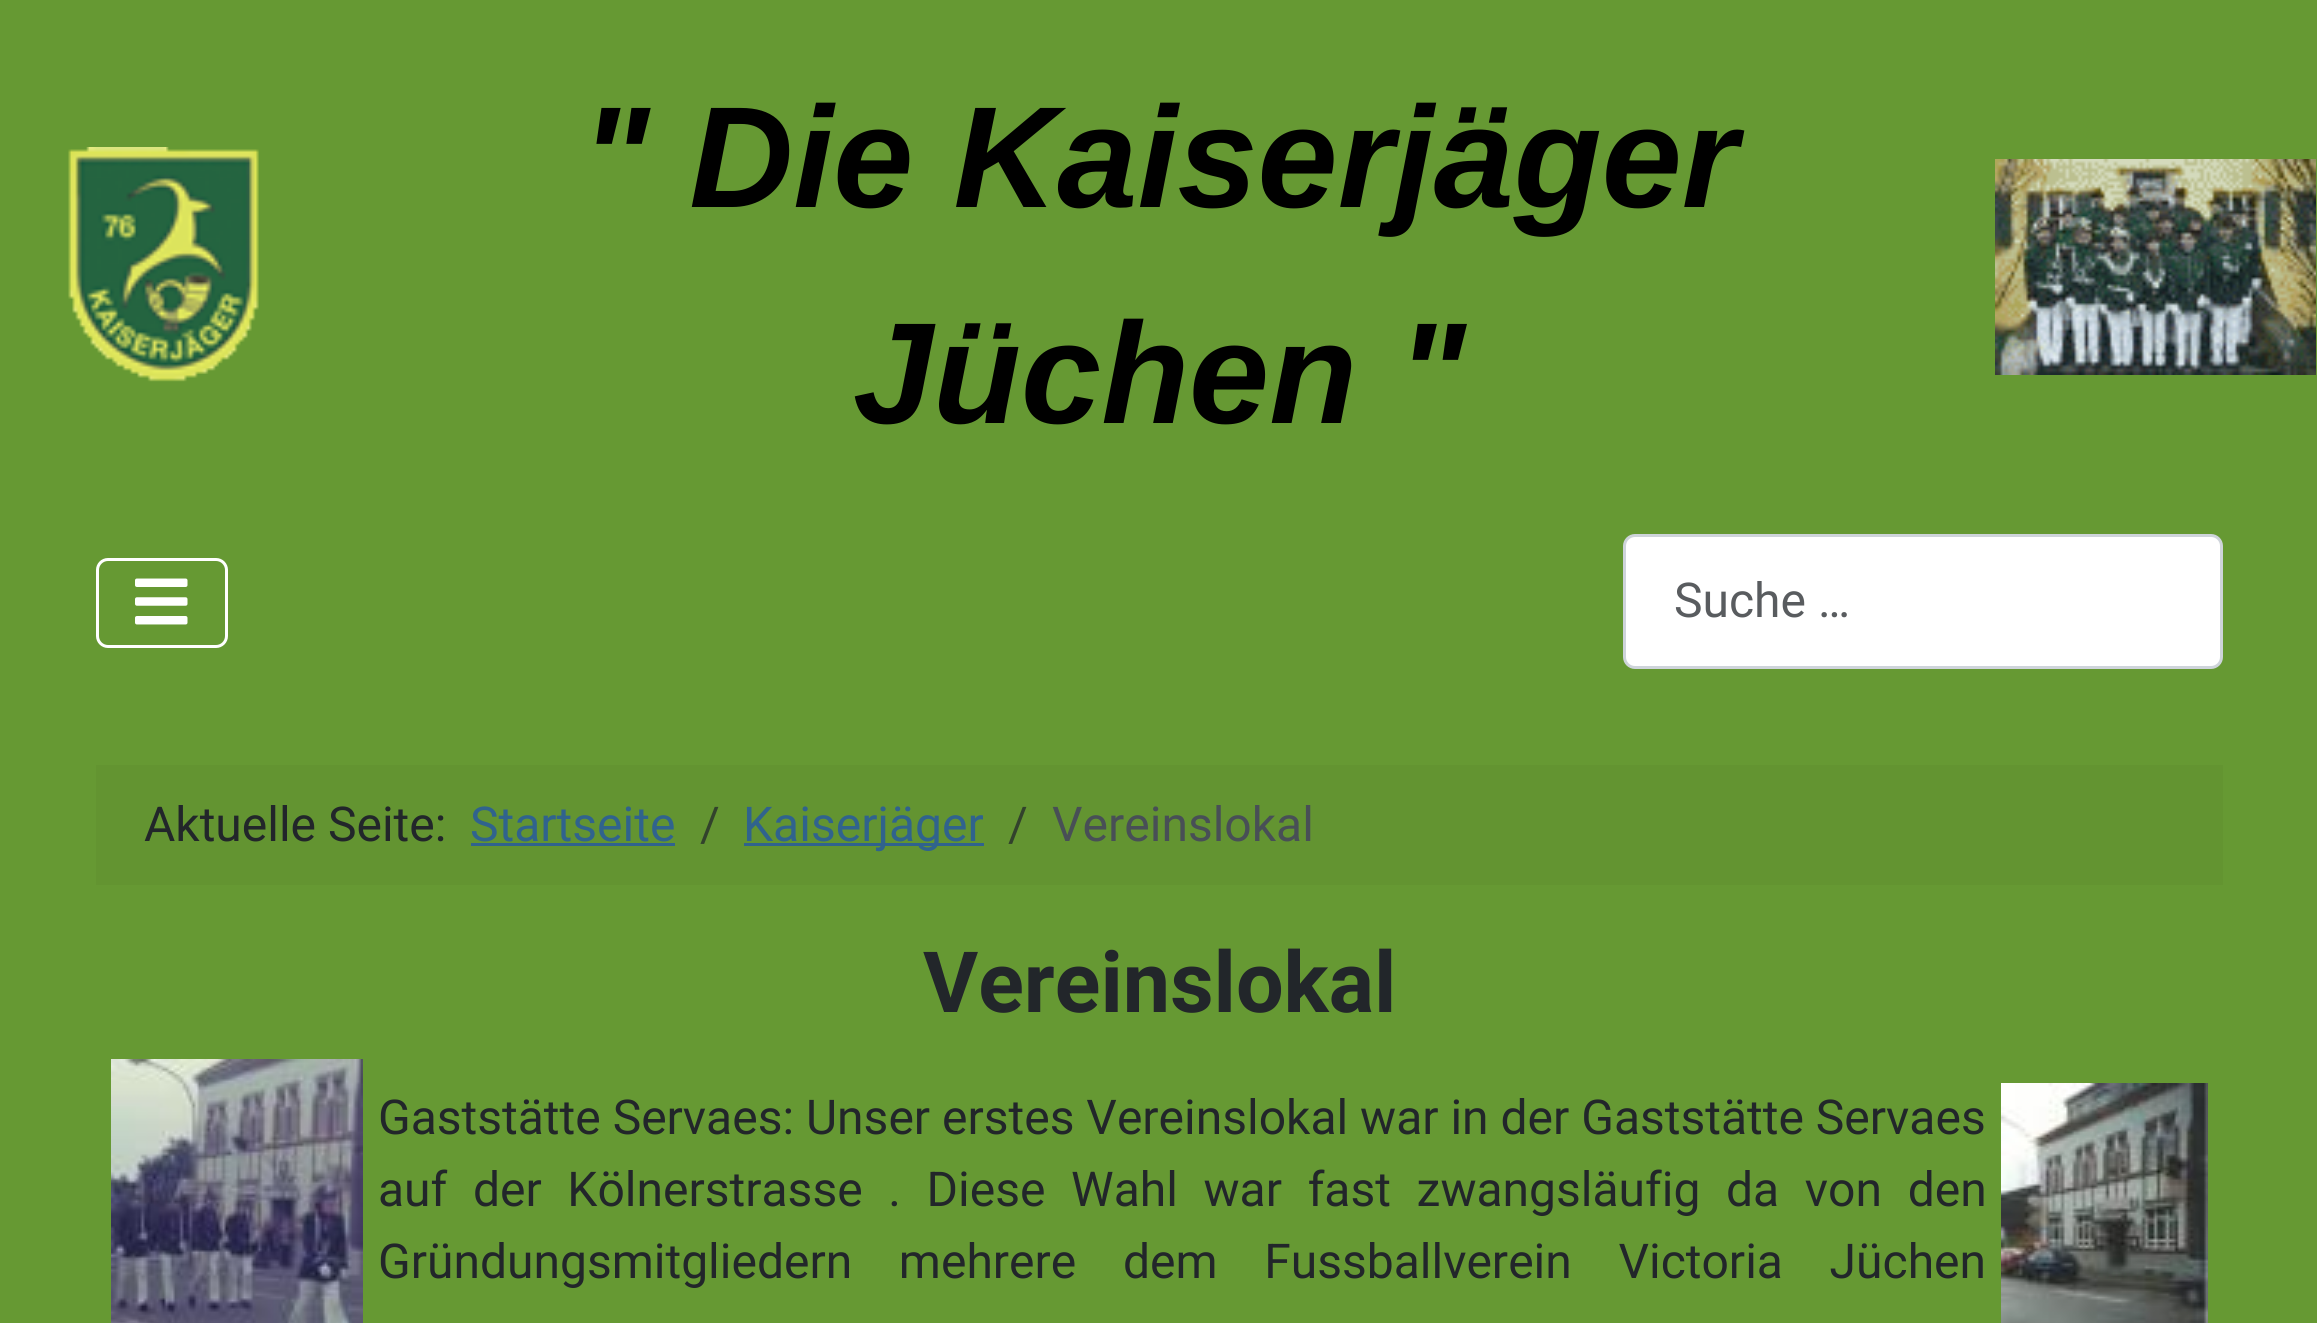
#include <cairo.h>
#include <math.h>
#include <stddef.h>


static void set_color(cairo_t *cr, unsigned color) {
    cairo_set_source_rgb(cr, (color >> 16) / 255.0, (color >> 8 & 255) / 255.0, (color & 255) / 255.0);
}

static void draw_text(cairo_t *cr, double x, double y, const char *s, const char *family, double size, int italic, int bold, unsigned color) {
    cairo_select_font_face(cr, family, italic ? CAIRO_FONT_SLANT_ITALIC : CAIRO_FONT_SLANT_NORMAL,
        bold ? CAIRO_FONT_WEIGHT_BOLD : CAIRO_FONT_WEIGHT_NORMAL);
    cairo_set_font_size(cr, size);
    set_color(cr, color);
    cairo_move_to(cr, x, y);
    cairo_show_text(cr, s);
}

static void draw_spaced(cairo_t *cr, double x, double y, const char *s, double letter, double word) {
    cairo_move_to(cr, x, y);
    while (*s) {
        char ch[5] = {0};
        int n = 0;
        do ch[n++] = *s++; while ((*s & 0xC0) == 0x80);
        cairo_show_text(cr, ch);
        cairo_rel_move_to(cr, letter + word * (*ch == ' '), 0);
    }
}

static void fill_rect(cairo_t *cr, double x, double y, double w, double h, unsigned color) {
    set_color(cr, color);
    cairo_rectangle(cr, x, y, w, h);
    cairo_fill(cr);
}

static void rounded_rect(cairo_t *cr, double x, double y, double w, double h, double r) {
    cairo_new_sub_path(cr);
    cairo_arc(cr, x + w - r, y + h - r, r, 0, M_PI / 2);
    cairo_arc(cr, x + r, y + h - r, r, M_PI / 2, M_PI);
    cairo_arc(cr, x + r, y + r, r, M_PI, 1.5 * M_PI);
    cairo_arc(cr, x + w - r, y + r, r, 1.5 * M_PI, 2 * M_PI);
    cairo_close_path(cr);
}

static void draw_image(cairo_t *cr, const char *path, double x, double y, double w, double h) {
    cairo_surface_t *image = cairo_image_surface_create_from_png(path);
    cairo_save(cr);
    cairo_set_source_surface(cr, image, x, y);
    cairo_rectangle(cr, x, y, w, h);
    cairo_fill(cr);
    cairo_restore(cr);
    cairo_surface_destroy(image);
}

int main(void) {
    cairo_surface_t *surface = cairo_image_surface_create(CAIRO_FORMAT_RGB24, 2317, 1323);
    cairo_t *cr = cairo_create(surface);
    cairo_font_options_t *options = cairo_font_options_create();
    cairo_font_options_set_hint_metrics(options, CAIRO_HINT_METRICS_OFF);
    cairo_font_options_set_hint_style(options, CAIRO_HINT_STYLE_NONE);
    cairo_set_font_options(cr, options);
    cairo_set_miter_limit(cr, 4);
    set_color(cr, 0x669933);
    cairo_paint(cr);
    draw_image(cr, "assets/img1.png", 68, 147, 191, 235);
    draw_text(cr, 581, 207, "\" Die Kaiserjäger", "Liberation Sans", 144, 1, 1, 0x000000);
    draw_text(cr, 853, 423, "Jüchen \"", "Liberation Sans", 144, 1, 1, 0x000000);
    draw_image(cr, "assets/img2.png", 1995, 159, 321, 216);
    rounded_rect(cr, 97.5, 559.5, 129, 87, 10.5);
    set_color(cr, 0xFFFFFF);
    cairo_set_line_width(cr, 3);
    cairo_stroke(cr);
    draw_image(cr, "assets/img3.png", 135, 578, 53, 47);
    rounded_rect(cr, 1624.5, 535.5, 597, 132, 10.5);
    cairo_fill_preserve(cr);
    set_color(cr, 0xCED4DA);
    cairo_stroke(cr);
    draw_text(cr, 1674, 617, "Suche …", "Roboto", 48, 0, 0, 0x595C5F);
    fill_rect(cr, 96, 765, 2127, 120, 0x639431);
    draw_text(cr, 144, 841, "Aktuelle Seite:", "Roboto", 48, 0, 0, 0x22262A);
    draw_text(cr, 470, 841, "Startseite", "Roboto", 48, 0, 0, 0x30638D);
    fill_rect(cr, 471, 843, 204, 3, 0x30638D);
    draw_text(cr, 700, 841, "/", "Roboto", 48, 0, 0, 0x32422C);
    fill_rect(cr, 744, 843, 240, 3, 0x30638D);
    draw_text(cr, 743, 841, "Kaiserjäger", "Roboto", 48, 0, 0, 0x30638D);
    draw_text(cr, 1008, 841, "/", "Roboto", 48, 0, 0, 0x32422C);
    draw_text(cr, 1052, 841, "Vereinslokal", "Roboto", 48, 0, 0, 0x484F56);
    draw_text(cr, 923, 1012, "Vereinslokal", "Roboto", 84.5, 0, 1, 0x22262A);
    draw_image(cr, "assets/img4.png", 111, 1059, 252, 264);
    draw_text(cr, 378, 1134, "Gaststätte Servaes: Unser erstes Vereinslokal war in der Gaststätte Servaes", "Roboto", 48, 0, 0, 0x22262A);
    draw_spaced(cr, 378, 1206, "auf der Kölnerstrasse . Diese Wahl war fast zwangsläufig da von den", 0, 13.75);
    draw_spaced(cr, 378, 1278, "Gründungsmitgliedern mehrere dem Fussballverein Victoria Jüchen", 0, 34.75);
    draw_image(cr, "assets/img5.png", 2001, 1083, 207, 240);
    cairo_surface_write_to_png(surface, "output.png");
    cairo_font_options_destroy(options);
    cairo_destroy(cr);
    cairo_surface_destroy(surface);
    return 0;
}
